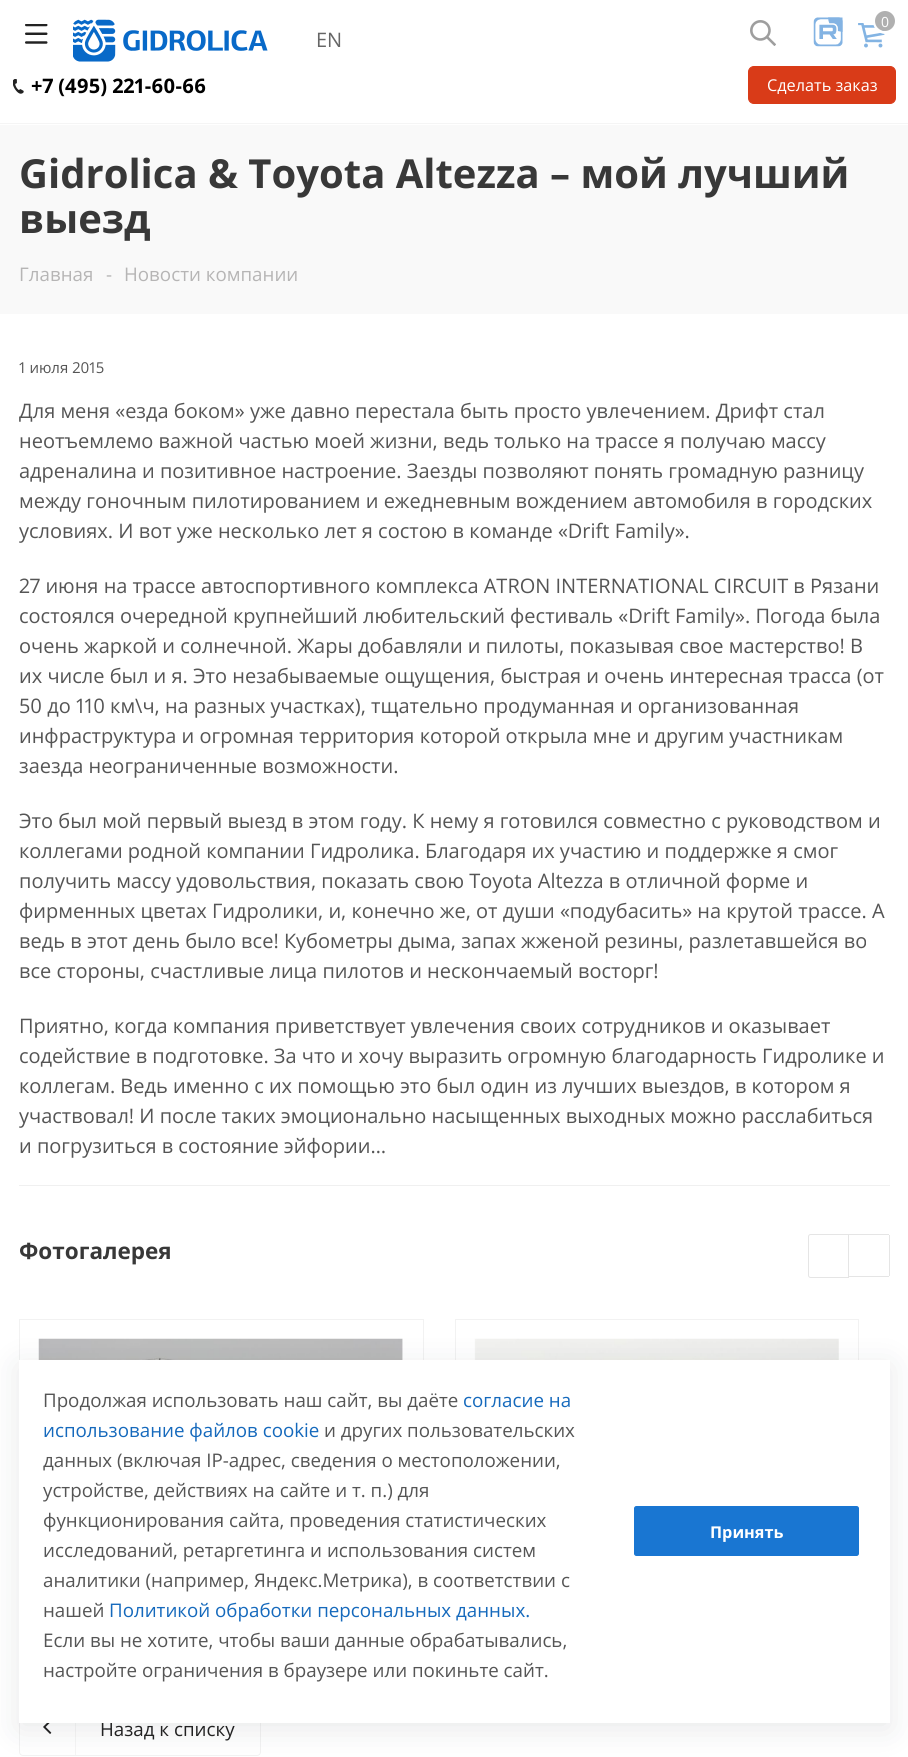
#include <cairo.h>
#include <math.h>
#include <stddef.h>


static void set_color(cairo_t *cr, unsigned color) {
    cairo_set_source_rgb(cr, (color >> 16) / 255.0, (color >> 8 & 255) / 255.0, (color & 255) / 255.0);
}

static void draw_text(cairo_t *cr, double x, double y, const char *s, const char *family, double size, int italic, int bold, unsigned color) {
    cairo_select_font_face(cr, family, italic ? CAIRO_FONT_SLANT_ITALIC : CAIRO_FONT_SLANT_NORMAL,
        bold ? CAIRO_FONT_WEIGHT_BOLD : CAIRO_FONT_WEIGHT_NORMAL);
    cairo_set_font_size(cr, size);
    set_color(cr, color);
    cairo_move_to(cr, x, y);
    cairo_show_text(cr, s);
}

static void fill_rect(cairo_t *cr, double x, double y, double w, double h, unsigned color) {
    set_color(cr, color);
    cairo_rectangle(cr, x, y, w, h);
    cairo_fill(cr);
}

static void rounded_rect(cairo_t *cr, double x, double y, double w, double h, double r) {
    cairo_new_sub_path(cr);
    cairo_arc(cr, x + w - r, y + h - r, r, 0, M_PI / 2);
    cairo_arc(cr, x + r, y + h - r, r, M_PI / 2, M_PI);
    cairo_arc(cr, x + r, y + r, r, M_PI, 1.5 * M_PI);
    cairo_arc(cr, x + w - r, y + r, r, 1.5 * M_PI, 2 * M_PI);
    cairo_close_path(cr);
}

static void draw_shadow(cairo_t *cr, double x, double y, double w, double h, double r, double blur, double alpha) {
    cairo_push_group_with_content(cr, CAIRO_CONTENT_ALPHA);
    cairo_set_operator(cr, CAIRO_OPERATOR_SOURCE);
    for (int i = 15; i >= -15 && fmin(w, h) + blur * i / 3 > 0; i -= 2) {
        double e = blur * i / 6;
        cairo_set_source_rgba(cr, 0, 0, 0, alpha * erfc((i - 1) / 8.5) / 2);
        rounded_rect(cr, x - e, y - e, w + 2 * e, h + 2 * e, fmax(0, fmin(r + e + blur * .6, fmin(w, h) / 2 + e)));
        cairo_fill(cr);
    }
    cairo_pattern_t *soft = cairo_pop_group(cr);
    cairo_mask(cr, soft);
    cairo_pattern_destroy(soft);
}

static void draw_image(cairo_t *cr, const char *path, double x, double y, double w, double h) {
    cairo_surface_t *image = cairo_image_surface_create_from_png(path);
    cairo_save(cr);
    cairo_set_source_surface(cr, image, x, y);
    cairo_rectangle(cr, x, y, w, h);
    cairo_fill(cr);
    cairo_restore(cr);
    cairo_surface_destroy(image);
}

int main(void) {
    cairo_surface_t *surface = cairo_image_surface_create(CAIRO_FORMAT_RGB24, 908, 1757);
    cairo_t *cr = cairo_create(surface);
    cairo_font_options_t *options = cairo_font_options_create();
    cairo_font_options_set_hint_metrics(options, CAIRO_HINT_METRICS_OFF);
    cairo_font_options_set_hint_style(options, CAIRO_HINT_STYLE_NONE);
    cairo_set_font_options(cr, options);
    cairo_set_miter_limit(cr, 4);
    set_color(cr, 0xFFFFFF);
    cairo_paint(cr);
    fill_rect(cr, 0, 123, 908, 1, 0xF5F5F5);
    draw_image(cr, "assets/img1.png", 750, 20, 26, 26);
    draw_image(cr, "assets/img2.png", 813, 17, 30, 30);
    draw_image(cr, "assets/img3.png", 858, 23, 27, 25);
    cairo_arc(cr, 885.5, 21.5, 11, 0, 2 * M_PI);
    set_color(cr, 0xFFFFFF);
    cairo_set_line_width(cr, 3);
    cairo_stroke(cr);
    set_color(cr, 0xB0B0B0);
    cairo_arc(cr, 885, 21, 10, 0, 2 * M_PI);
    cairo_fill(cr);
    draw_text(cr, 881, 27, "0", "Open Sans", 14, 0, 0, 0xFFFFFF);
    draw_image(cr, "assets/img4.png", 25, 24, 23, 20);
    draw_image(cr, "assets/img5.png", 73, 19, 195, 43);
    draw_text(cr, 316, 47, "EN", "Open Sans", 20, 0, 0, 0x666666);
    draw_image(cr, "assets/img6.png", 13, 79, 11, 15);
    draw_text(cr, 31, 93, "+7 (495) 221-60-66", "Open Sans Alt", 20, 0, 1, 0x000000);
    set_color(cr, 0xD93B18);
    rounded_rect(cr, 748.5, 66.5, 147, 37, 5.5);
    cairo_fill_preserve(cr);
    cairo_set_line_width(cr, 1);
    cairo_stroke(cr);
    draw_text(cr, 767, 91, "Сделать заказ", "Open Sans", 16.25, 0, 0, 0xFFFFFF);
    fill_rect(cr, 0, 125, 908, 189, 0xF9F9F9);
    draw_text(cr, 19, 188, "Gidrolica & Toyota Altezza – мой лучший", "Open Sans", 40, 0, 1, 0x383838);
    draw_text(cr, 19, 233, "выезд", "Open Sans", 40, 0, 1, 0x383838);
    draw_text(cr, 19, 281, "Главная", "Open Sans", 18.75, 0, 0, 0xB6B5B5);
    draw_text(cr, 106, 281, "-", "Open Sans", 18.75, 0, 0, 0xB6B5B5);
    draw_text(cr, 124, 281, "Новости компании", "Open Sans", 18.75, 0, 0, 0xB6B5B5);
    draw_text(cr, 19, 373, "1 июля 2015", "Open Sans Alt", 15, 0, 0, 0x555555);
    draw_text(cr, 19, 418, "Для меня «езда боком» уже давно перестала быть просто увлечением. Дрифт стал", "Open Sans", 20, 0, 0, 0x555555);
    draw_text(cr, 19, 448, "неотъемлемо важной частью моей жизни, ведь только на трассе я получаю массу", "Open Sans", 20, 0, 0, 0x555555);
    draw_text(cr, 19, 478, "адреналина и позитивное настроение. Заезды позволяют понять громадную разницу", "Open Sans", 20, 0, 0, 0x555555);
    draw_text(cr, 19, 508, "между гоночным пилотированием и ежедневным вождением автомобиля в городских", "Open Sans", 20, 0, 0, 0x555555);
    draw_text(cr, 19, 538, "условиях. И вот уже несколько лет я состою в команде «Drift Family».", "Open Sans", 20, 0, 0, 0x555555);
    draw_text(cr, 19, 593, "27 июня на трассе автоспортивного комплекса ATRON INTERNATIONAL CIRCUIT в Рязани", "Open Sans Alt", 20, 0, 0, 0x555555);
    draw_text(cr, 19, 623, "состоялся очередной крупнейший любительский фестиваль «Drift Family». Погода была", "Open Sans", 20, 0, 0, 0x555555);
    draw_text(cr, 19, 653, "очень жаркой и солнечной. Жары добавляли и пилоты, показывая свое мастерство! В", "Open Sans", 20, 0, 0, 0x555555);
    draw_text(cr, 19, 683, "их числе был и я. Это незабываемые ощущения, быстрая и очень интересная трасса (от", "Open Sans", 20, 0, 0, 0x555555);
    draw_text(cr, 19, 713, "50 до 110 км\\ч, на разных участках), тщательно продуманная и организованная", "Open Sans Alt", 20, 0, 0, 0x555555);
    draw_text(cr, 19, 743, "инфраструктура и огромная территория которой открыла мне и другим участникам", "Open Sans", 20, 0, 0, 0x555555);
    draw_text(cr, 19, 773, "заезда неограниченные возможности.", "Open Sans", 20, 0, 0, 0x555555);
    draw_text(cr, 19, 828, "Это был мой первый выезд в этом году. К нему я готовился совместно с руководством и", "Open Sans", 20, 0, 0, 0x555555);
    draw_text(cr, 19, 858, "коллегами родной компании Гидролика. Благодаря их участию и поддержке я смог", "Open Sans", 20, 0, 0, 0x555555);
    draw_text(cr, 19, 888, "получить массу удовольствия, показать свою Toyota Altezza в отличной форме и", "Open Sans", 20, 0, 0, 0x555555);
    draw_text(cr, 19, 918, "фирменных цветах Гидролики, и, конечно же, от души «подубасить» на крутой трассе. А", "Open Sans", 20, 0, 0, 0x555555);
    draw_text(cr, 19, 948, "ведь в этот день было все! Кубометры дыма, запах жженой резины, разлетавшейся во", "Open Sans", 20, 0, 0, 0x555555);
    draw_text(cr, 19, 978, "все стороны, счастливые лица пилотов и нескончаемый восторг!", "Open Sans", 20, 0, 0, 0x555555);
    draw_text(cr, 19, 1033, "Приятно, когда компания приветствует увлечения своих сотрудников и оказывает", "Open Sans", 20, 0, 0, 0x555555);
    draw_text(cr, 19, 1063, "содействие в подготовке. За что и хочу выразить огромную благодарность Гидролике и", "Open Sans", 20, 0, 0, 0x555555);
    draw_text(cr, 19, 1093, "коллегам. Ведь именно с их помощью это был один из лучших выездов, в котором я", "Open Sans", 20, 0, 0, 0x555555);
    draw_text(cr, 19, 1123, "участвовал! И после таких эмоционально насыщенных выходных можно расслабиться", "Open Sans", 20, 0, 0, 0x555555);
    draw_text(cr, 19, 1153, "и погрузиться в состояние эйфории…", "Open Sans", 20, 0, 0, 0x555555);
    fill_rect(cr, 19, 1185, 871, 1, 0xF0F0F0);
    cairo_new_path(cr);
    cairo_move_to(cr, 810.5, 1234.5);
    cairo_line_to(cr, 848.5, 1234.5);
    cairo_line_to(cr, 848.5, 1277.5);
    cairo_line_to(cr, 810.5, 1277.5);
    cairo_curve_to(cr, 809.5, 1277.5, 808.5, 1276.5, 808.5, 1275.5);
    cairo_line_to(cr, 808.5, 1236.5);
    cairo_curve_to(cr, 808.5, 1235.5, 809.5, 1234.5, 810.5, 1234.5);
    cairo_close_path(cr);
    set_color(cr, 0xE5E5E5);
    cairo_stroke(cr);
    fill_rect(cr, 849, 1234, 40, 1, 0xE5E5E5);
    fill_rect(cr, 889, 1235, 1, 41, 0xE5E5E5);
    fill_rect(cr, 849, 1276, 40, 1, 0xE5E5E5);
    cairo_rectangle(cr, 19.5, 1319.5, 404, 281);
    set_color(cr, 0xF2F2F2);
    cairo_stroke(cr);
    draw_image(cr, "assets/img7.png", 38, 1338, 365, 22);
    cairo_rectangle(cr, 455.5, 1319.5, 403, 281);
    cairo_stroke(cr);
    draw_image(cr, "assets/img8.png", 474, 1338, 365, 22);
    draw_text(cr, 19, 1259, "Фотогалерея", "Open Sans", 22.5, 0, 1, 0x383838);
    rounded_rect(cr, 19.5, 1701.5, 241, 54, 3.5);
    set_color(cr, 0xF2F2F2);
    cairo_stroke(cr);
    draw_image(cr, "assets/img9.png", 43, 1723, 9, 11);
    fill_rect(cr, 75, 1723, 1, 32, 0xF5F5F5);
    draw_text(cr, 100, 1736, "Назад к списку", "Open Sans", 18.75, 0, 0, 0x222222);
    set_color(cr, 0x121926);
    draw_shadow(cr, 19, 1366, 871, 363, 0, 15.5, 0.1);
    fill_rect(cr, 19, 1360, 871, 363, 0xFFFFFF);
    draw_text(cr, 43, 1407, "Продолжая использовать наш сайт, вы даёте", "Open Sans", 18.75, 0, 0, 0x555555);
    draw_text(cr, 463, 1407, "согласие на", "Open Sans", 18.75, 0, 0, 0x1569BC);
    draw_text(cr, 43, 1437, "использование файлов cookie", "Open Sans", 18.75, 0, 0, 0x1569BC);
    draw_text(cr, 324, 1437, "и других пользовательских", "Open Sans", 18.75, 0, 0, 0x555555);
    draw_text(cr, 43, 1467, "данных (включая IP-адрес, сведения о местоположении,", "Open Sans", 18.75, 0, 0, 0x555555);
    draw_text(cr, 43, 1497, "устройстве, действиях на сайте и т. п.) для", "Open Sans", 18.75, 0, 0, 0x555555);
    draw_text(cr, 43, 1527, "функционирования сайта, проведения статистических", "Open Sans", 18.75, 0, 0, 0x555555);
    draw_text(cr, 43, 1557, "исследований, ретаргетинга и использования систем", "Open Sans", 18.75, 0, 0, 0x555555);
    draw_text(cr, 43, 1587, "аналитики (например, Яндекс.Метрика), в соответствии с", "Open Sans", 18.75, 0, 0, 0x555555);
    draw_text(cr, 43, 1617, "нашей", "Open Sans", 18.75, 0, 0, 0x555555);
    draw_text(cr, 109, 1617, "Политикой обработки персональных данных.", "Open Sans", 18.75, 0, 0, 0x1569BC);
    draw_text(cr, 43, 1647, "Если вы не хотите, чтобы ваши данные обрабатывались,", "Open Sans", 18.75, 0, 0, 0x555555);
    draw_text(cr, 43, 1677, "настройте ограничения в браузере или покиньте сайт.", "Open Sans", 18.75, 0, 0, 0x555555);
    set_color(cr, 0x1976D2);
    rounded_rect(cr, 634.5, 1506.5, 224, 49, 2);
    cairo_fill_preserve(cr);
    cairo_stroke(cr);
    draw_text(cr, 710, 1538, "Принять", "Open Sans", 16.25, 0, 1, 0xFFFFFF);
    cairo_surface_write_to_png(surface, "output.png");
    cairo_font_options_destroy(options);
    cairo_destroy(cr);
    cairo_surface_destroy(surface);
    return 0;
}
